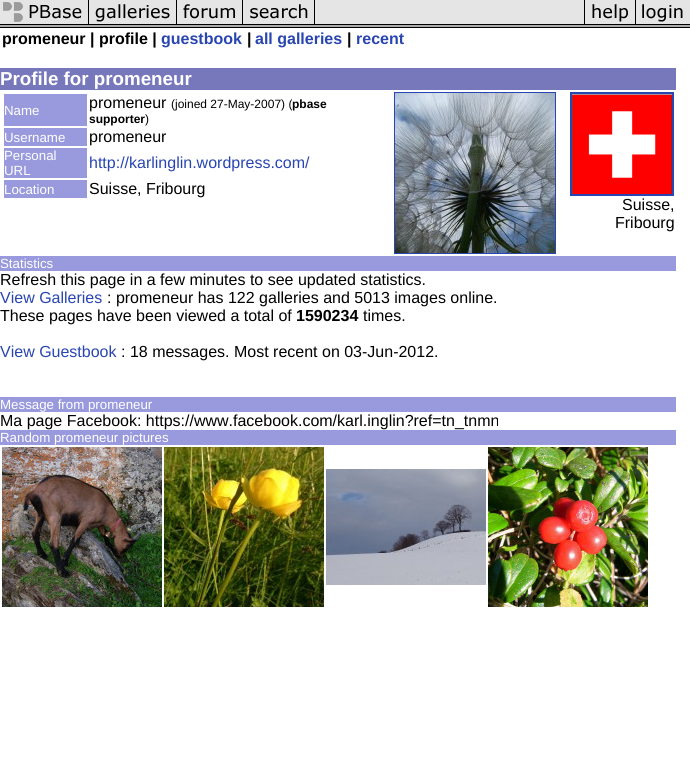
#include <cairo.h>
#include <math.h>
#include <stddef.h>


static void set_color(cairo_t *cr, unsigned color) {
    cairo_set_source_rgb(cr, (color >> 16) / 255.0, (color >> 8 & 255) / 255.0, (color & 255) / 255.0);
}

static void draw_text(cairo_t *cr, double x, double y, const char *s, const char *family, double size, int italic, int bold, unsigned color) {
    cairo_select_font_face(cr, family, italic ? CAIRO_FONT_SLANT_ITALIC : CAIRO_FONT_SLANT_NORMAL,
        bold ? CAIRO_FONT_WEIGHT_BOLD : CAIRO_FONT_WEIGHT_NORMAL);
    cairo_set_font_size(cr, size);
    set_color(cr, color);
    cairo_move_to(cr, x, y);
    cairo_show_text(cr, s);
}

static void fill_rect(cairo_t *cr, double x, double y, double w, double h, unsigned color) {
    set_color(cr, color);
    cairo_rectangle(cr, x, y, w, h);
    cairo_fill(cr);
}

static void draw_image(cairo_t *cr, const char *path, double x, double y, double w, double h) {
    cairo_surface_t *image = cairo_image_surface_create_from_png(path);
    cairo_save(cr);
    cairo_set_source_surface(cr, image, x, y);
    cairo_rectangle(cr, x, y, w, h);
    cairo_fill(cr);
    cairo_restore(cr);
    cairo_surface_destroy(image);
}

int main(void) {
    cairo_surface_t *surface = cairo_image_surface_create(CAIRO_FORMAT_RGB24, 690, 765);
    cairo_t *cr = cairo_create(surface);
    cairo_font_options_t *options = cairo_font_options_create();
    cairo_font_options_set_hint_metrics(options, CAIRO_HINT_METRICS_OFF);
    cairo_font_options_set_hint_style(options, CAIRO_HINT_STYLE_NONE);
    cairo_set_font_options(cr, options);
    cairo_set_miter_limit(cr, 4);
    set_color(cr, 0xFFFFFF);
    cairo_paint(cr);
    draw_image(cr, "assets/img1.png", 0, 0, 89, 28);
    draw_image(cr, "assets/img2.png", 89, 0, 88, 28);
    draw_image(cr, "assets/img3.png", 177, 0, 66, 28);
    draw_image(cr, "assets/img4.png", 243, 0, 72, 28);
    draw_image(cr, "assets/img5.png", 315, 0, 269, 28);
    draw_image(cr, "assets/img6.png", 584, 0, 52, 28);
    draw_image(cr, "assets/img7.png", 636, 0, 54, 28);
    draw_text(cr, 2, 44, "promeneur | profile |", "Liberation Sans", 16, 0, 1, 0x000000);
    draw_text(cr, 161, 44, "guestbook", "Liberation Sans", 16, 0, 1, 0x2845B1);
    draw_text(cr, 247, 44, "|", "Liberation Sans", 16, 0, 1, 0x000000);
    draw_text(cr, 255, 44, "all galleries", "Liberation Sans", 16, 0, 1, 0x2845B1);
    draw_text(cr, 347, 44, "|", "Liberation Sans", 16, 0, 1, 0x000000);
    draw_text(cr, 356, 44, "recent", "Liberation Sans", 16, 0, 1, 0x2845B1);
    fill_rect(cr, 0, 68, 676, 22, 0x7777BB);
    draw_text(cr, 0, 85, "Profile for promeneur", "Liberation Sans", 18.75, 0, 1, 0xFFFFFF);
    fill_rect(cr, 4, 94, 83, 32, 0x9999DD);
    draw_text(cr, 4, 115, "Name", "Liberation Sans", 13.3, 0, 0, 0xFFFFFF);
    draw_text(cr, 89, 108, "promeneur", "Liberation Sans", 16, 0, 0, 0x000000);
    draw_text(cr, 171, 108, "(joined 27-May-2007) (", "Liberation Sans", 12, 0, 0, 0x000000);
    draw_text(cr, 292, 108, "pbase", "Liberation Sans", 12, 0, 1, 0x000000);
    draw_text(cr, 89, 123, "supporter", "Liberation Sans", 12, 0, 1, 0x000000);
    draw_text(cr, 145, 123, ")", "Liberation Sans", 12, 0, 0, 0x000000);
    fill_rect(cr, 4, 128, 83, 18, 0x9999DD);
    draw_text(cr, 4, 142, "Username", "Liberation Sans", 13.3, 0, 0, 0xFFFFFF);
    draw_text(cr, 89, 142, "promeneur", "Liberation Sans", 16, 0, 0, 0x000000);
    fill_rect(cr, 4, 148, 83, 30, 0x9999DD);
    draw_text(cr, 4, 160, "Personal", "Liberation Sans", 13.3, 0, 0, 0xFFFFFF);
    draw_text(cr, 4, 175, "URL", "Liberation Sans", 13.3, 0, 0, 0xFFFFFF);
    draw_text(cr, 89, 168, "http://karlinglin.wordpress.com/", "Liberation Sans", 16, 0, 0, 0x2845B1);
    fill_rect(cr, 4, 180, 83, 18, 0x9999DD);
    draw_text(cr, 4, 194, "Location", "Liberation Sans", 13.3, 0, 0, 0xFFFFFF);
    draw_text(cr, 89, 194, "Suisse, Fribourg", "Liberation Sans", 16, 0, 0, 0x000000);
    cairo_rectangle(cr, 394.5, 92.5, 161, 161);
    set_color(cr, 0x2845B1);
    cairo_set_line_width(cr, 1);
    cairo_stroke(cr);
    draw_image(cr, "assets/img8.png", 395, 93, 160, 160);
    cairo_rectangle(cr, 571, 93, 102, 102);
    cairo_set_line_width(cr, 2);
    cairo_stroke(cr);
    draw_image(cr, "assets/img9.png", 572, 94, 100, 100);
    draw_text(cr, 622, 210, "Suisse,", "Liberation Sans", 16, 0, 0, 0x000000);
    draw_text(cr, 615, 228, "Fribourg", "Liberation Sans", 16, 0, 0, 0x000000);
    fill_rect(cr, 0, 256, 676, 15, 0x9999DD);
    draw_text(cr, 0, 268, "Statistics", "Liberation Sans", 13.3, 0, 0, 0xFFFFFF);
    draw_text(cr, 0, 285, "Refresh this page in a few minutes to see updated statistics.", "Liberation Sans", 16, 0, 0, 0x000000);
    draw_text(cr, 0, 303, "View Galleries", "Liberation Sans", 16, 0, 0, 0x2845B1);
    draw_text(cr, 107, 303, ": promeneur has 122 galleries and 5013 images online.", "Liberation Sans", 16, 0, 0, 0x000000);
    draw_text(cr, 0, 321, "These pages have been viewed a total of", "Liberation Sans", 16, 0, 0, 0x000000);
    draw_text(cr, 296, 321, "1590234", "Liberation Sans", 16, 0, 1, 0x000000);
    draw_text(cr, 363, 321, "times.", "Liberation Sans", 16, 0, 0, 0x000000);
    draw_text(cr, 0, 357, "View Guestbook", "Liberation Sans", 16, 0, 0, 0x2845B1);
    draw_text(cr, 121, 357, ": 18 messages. Most recent on 03-Jun-2012.", "Liberation Sans", 16, 0, 0, 0x000000);
    fill_rect(cr, 0, 397, 676, 15, 0x9999DD);
    draw_text(cr, 0, 409, "Message from promeneur", "Liberation Sans", 13.3, 0, 0, 0xFFFFFF);
    draw_text(cr, 0, 426, "Ma page Facebook: https://www.facebook.com/karl.inglin?ref=tn_tnmn", "Liberation Sans", 16, 0, 0, 0x000000);
    fill_rect(cr, 0, 430, 676, 15, 0x9999DD);
    draw_text(cr, 0, 442, "Random promeneur pictures", "Liberation Sans", 13.3, 0, 0, 0xFFFFFF);
    draw_image(cr, "assets/img10.png", 2, 447, 160, 160);
    draw_image(cr, "assets/img11.png", 164, 447, 160, 160);
    draw_image(cr, "assets/img12.png", 326, 469, 160, 116);
    draw_image(cr, "assets/img13.png", 488, 447, 160, 160);
    cairo_surface_write_to_png(surface, "output.png");
    cairo_font_options_destroy(options);
    cairo_destroy(cr);
    cairo_surface_destroy(surface);
    return 0;
}
